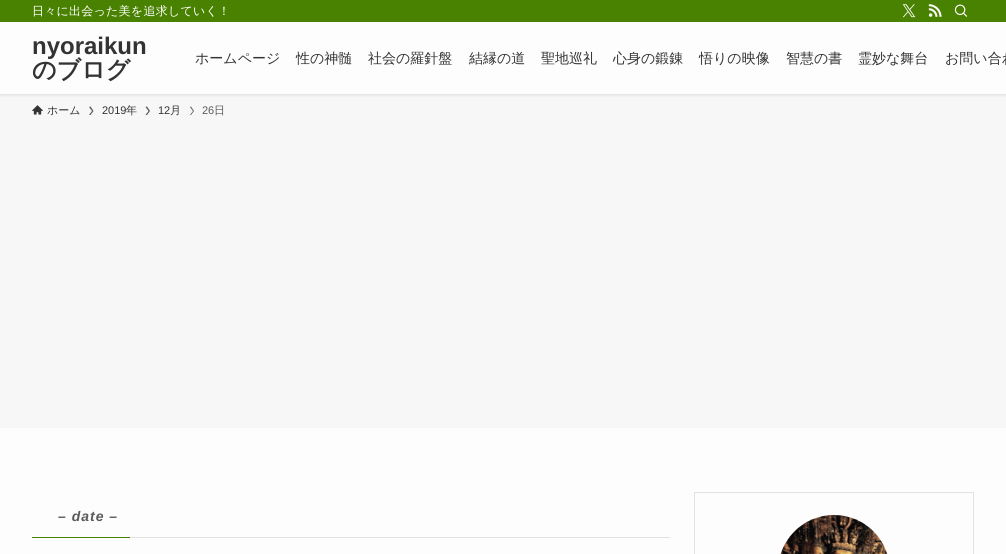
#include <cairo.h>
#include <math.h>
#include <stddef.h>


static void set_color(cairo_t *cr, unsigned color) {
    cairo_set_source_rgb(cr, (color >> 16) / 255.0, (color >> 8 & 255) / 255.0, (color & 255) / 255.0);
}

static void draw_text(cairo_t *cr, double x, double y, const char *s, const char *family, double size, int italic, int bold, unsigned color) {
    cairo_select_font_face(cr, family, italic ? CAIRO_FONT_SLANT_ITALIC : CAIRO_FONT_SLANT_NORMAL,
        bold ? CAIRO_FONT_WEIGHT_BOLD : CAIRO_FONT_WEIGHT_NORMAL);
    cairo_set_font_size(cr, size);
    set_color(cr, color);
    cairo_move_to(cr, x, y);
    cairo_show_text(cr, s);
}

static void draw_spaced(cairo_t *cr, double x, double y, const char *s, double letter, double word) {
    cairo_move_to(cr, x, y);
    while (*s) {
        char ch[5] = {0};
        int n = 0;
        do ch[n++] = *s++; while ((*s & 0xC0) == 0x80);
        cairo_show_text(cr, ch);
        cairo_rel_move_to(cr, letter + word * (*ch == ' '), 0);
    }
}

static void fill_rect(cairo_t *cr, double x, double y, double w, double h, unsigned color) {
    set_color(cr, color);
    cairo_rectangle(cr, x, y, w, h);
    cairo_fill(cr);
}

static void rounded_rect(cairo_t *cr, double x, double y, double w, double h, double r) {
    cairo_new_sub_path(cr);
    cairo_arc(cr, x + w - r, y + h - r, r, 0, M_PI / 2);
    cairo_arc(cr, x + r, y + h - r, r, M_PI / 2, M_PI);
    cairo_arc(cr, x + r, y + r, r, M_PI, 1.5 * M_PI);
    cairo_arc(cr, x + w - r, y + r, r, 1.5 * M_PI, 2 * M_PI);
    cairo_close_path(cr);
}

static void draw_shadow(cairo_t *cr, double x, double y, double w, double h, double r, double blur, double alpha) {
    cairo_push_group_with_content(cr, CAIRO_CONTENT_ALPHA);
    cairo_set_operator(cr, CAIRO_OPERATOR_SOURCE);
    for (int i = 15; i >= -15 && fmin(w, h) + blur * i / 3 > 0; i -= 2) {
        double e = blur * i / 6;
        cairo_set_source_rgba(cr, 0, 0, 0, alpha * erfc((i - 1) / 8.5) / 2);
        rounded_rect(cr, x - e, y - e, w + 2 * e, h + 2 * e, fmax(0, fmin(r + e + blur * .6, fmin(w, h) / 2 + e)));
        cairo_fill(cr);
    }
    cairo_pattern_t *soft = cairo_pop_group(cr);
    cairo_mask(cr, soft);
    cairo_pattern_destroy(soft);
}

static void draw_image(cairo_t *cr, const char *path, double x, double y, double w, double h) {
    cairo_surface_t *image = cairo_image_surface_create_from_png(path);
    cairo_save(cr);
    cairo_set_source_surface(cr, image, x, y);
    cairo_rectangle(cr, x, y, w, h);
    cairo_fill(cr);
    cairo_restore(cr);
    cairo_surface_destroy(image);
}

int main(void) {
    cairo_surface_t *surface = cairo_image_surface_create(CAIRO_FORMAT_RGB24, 1006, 554);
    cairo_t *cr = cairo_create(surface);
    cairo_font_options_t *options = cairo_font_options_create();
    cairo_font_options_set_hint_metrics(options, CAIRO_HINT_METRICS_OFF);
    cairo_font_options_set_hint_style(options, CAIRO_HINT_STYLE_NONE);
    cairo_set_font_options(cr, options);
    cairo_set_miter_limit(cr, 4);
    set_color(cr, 0xFDFDFD);
    cairo_paint(cr);
    fill_rect(cr, 0, 94, 1006, 334, 0xF7F7F7);
    cairo_save(cr);
    cairo_rectangle(cr, 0, 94, 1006, 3);
    cairo_clip(cr);
    set_color(cr, 0x000000);
    draw_shadow(cr, 0, 1, 1006, 94, 0, 2, 0.12);
    cairo_restore(cr);
    fill_rect(cr, 0, 0, 1006, 22, 0x498200);
    cairo_select_font_face(cr, "WenQuanYi Zen Hei Medium", CAIRO_FONT_SLANT_NORMAL, CAIRO_FONT_WEIGHT_NORMAL);
    cairo_set_font_size(cr, 12);
    set_color(cr, 0xFFFFFF);
    draw_spaced(cr, 32, 15, "日々に出会った美を追求していく！", 0.25, 0);
    draw_image(cr, "assets/img1.png", 902, 4, 14, 14);
    draw_image(cr, "assets/img2.png", 928, 4, 14, 13);
    draw_image(cr, "assets/img3.png", 954, 4, 14, 13);
    draw_text(cr, 32, 54, "nyoraikun", "Liberation Sans", 24, 0, 1, 0x333333);
    draw_text(cr, 32, 78, "のブログ", "WenQuanYi Zen Hei", 24, 0, 1, 0x333333);
    draw_text(cr, 195, 63, "ホームページ", "WenQuanYi Zen Hei Medium", 14, 0, 0, 0x333333);
    draw_text(cr, 296, 63, "性の神髄", "WenQuanYi Zen Hei Medium", 14, 0, 0, 0x333333);
    draw_text(cr, 368, 63, "社会の羅針盤", "WenQuanYi Zen Hei Medium", 14, 0, 0, 0x333333);
    draw_text(cr, 469, 63, "結縁の道", "WenQuanYi Zen Hei Medium", 14, 0, 0, 0x333333);
    draw_text(cr, 541, 63, "聖地巡礼", "WenQuanYi Zen Hei Medium", 14, 0, 0, 0x333333);
    draw_text(cr, 613, 63, "心身の鍛錬", "WenQuanYi Zen Hei Medium", 14, 0, 0, 0x333333);
    draw_text(cr, 699, 63, "悟りの映像", "WenQuanYi Zen Hei Medium", 14, 0, 0, 0x333333);
    draw_text(cr, 786, 63, "智慧の書", "WenQuanYi Zen Hei Medium", 14, 0, 0, 0x333333);
    draw_text(cr, 858, 63, "霊妙な舞台", "WenQuanYi Zen Hei Medium", 14, 0, 0, 0x333333);
    draw_text(cr, 945, 63, "お問い合わ", "WenQuanYi Zen Hei Medium", 14, 0, 0, 0x333333);
    draw_image(cr, "assets/img4.png", 32, 105, 11, 10);
    draw_text(cr, 47, 114, "ホーム", "WenQuanYi Zen Hei Medium", 11, 0, 0, 0x333333);
    set_color(cr, 0x5A5A5A);
    cairo_new_path(cr);
    cairo_move_to(cr, 90.5, 106.5);
    cairo_line_to(cr, 89, 107);
    cairo_line_to(cr, 92, 111);
    cairo_line_to(cr, 89, 115);
    cairo_line_to(cr, 90.5, 115);
    cairo_line_to(cr, 93.5, 111);
    cairo_close_path(cr);
    cairo_fill(cr);
    draw_text(cr, 102, 114, "2019", "Liberation Sans", 11, 0, 0, 0x333333);
    draw_text(cr, 126, 114, "年", "WenQuanYi Zen Hei Medium", 11, 0, 0, 0x333333);
    set_color(cr, 0x5A5A5A);
    cairo_new_path(cr);
    cairo_move_to(cr, 147, 106.5);
    cairo_line_to(cr, 145.5, 107);
    cairo_line_to(cr, 148.5, 111);
    cairo_line_to(cr, 145.5, 115);
    cairo_line_to(cr, 147, 115);
    cairo_line_to(cr, 150, 111);
    cairo_close_path(cr);
    cairo_fill(cr);
    draw_text(cr, 158, 114, "12", "Liberation Sans", 11, 0, 0, 0x333333);
    draw_text(cr, 170, 114, "月", "WenQuanYi Zen Hei Medium", 11, 0, 0, 0x333333);
    set_color(cr, 0x5A5A5A);
    cairo_new_path(cr);
    cairo_move_to(cr, 191, 106.5);
    cairo_line_to(cr, 190, 107);
    cairo_line_to(cr, 193, 111);
    cairo_line_to(cr, 190, 115);
    cairo_line_to(cr, 191, 115);
    cairo_line_to(cr, 194, 111);
    cairo_close_path(cr);
    cairo_fill(cr);
    draw_text(cr, 202, 114, "26", "Liberation Sans", 11, 0, 0, 0x5A5A5A);
    draw_text(cr, 214, 114, "日", "WenQuanYi Zen Hei Medium", 11, 0, 0, 0x5A5A5A);
    fill_rect(cr, 130, 537, 540, 1, 0xE2E2E2);
    fill_rect(cr, 32, 537, 98, 1, 0x498200);
    cairo_select_font_face(cr, "Liberation Sans", CAIRO_FONT_SLANT_ITALIC, CAIRO_FONT_WEIGHT_BOLD);
    cairo_set_font_size(cr, 14);
    set_color(cr, 0x5A5A5A);
    draw_spaced(cr, 58, 521, "– date –", 1, 0);
    cairo_rectangle(cr, 694.5, 492.5, 279, 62);
    set_color(cr, 0xE2E2E2);
    cairo_set_line_width(cr, 1);
    cairo_stroke(cr);
    draw_image(cr, "assets/img5.png", 780, 515, 108, 39);
    cairo_surface_write_to_png(surface, "output.png");
    cairo_font_options_destroy(options);
    cairo_destroy(cr);
    cairo_surface_destroy(surface);
    return 0;
}
